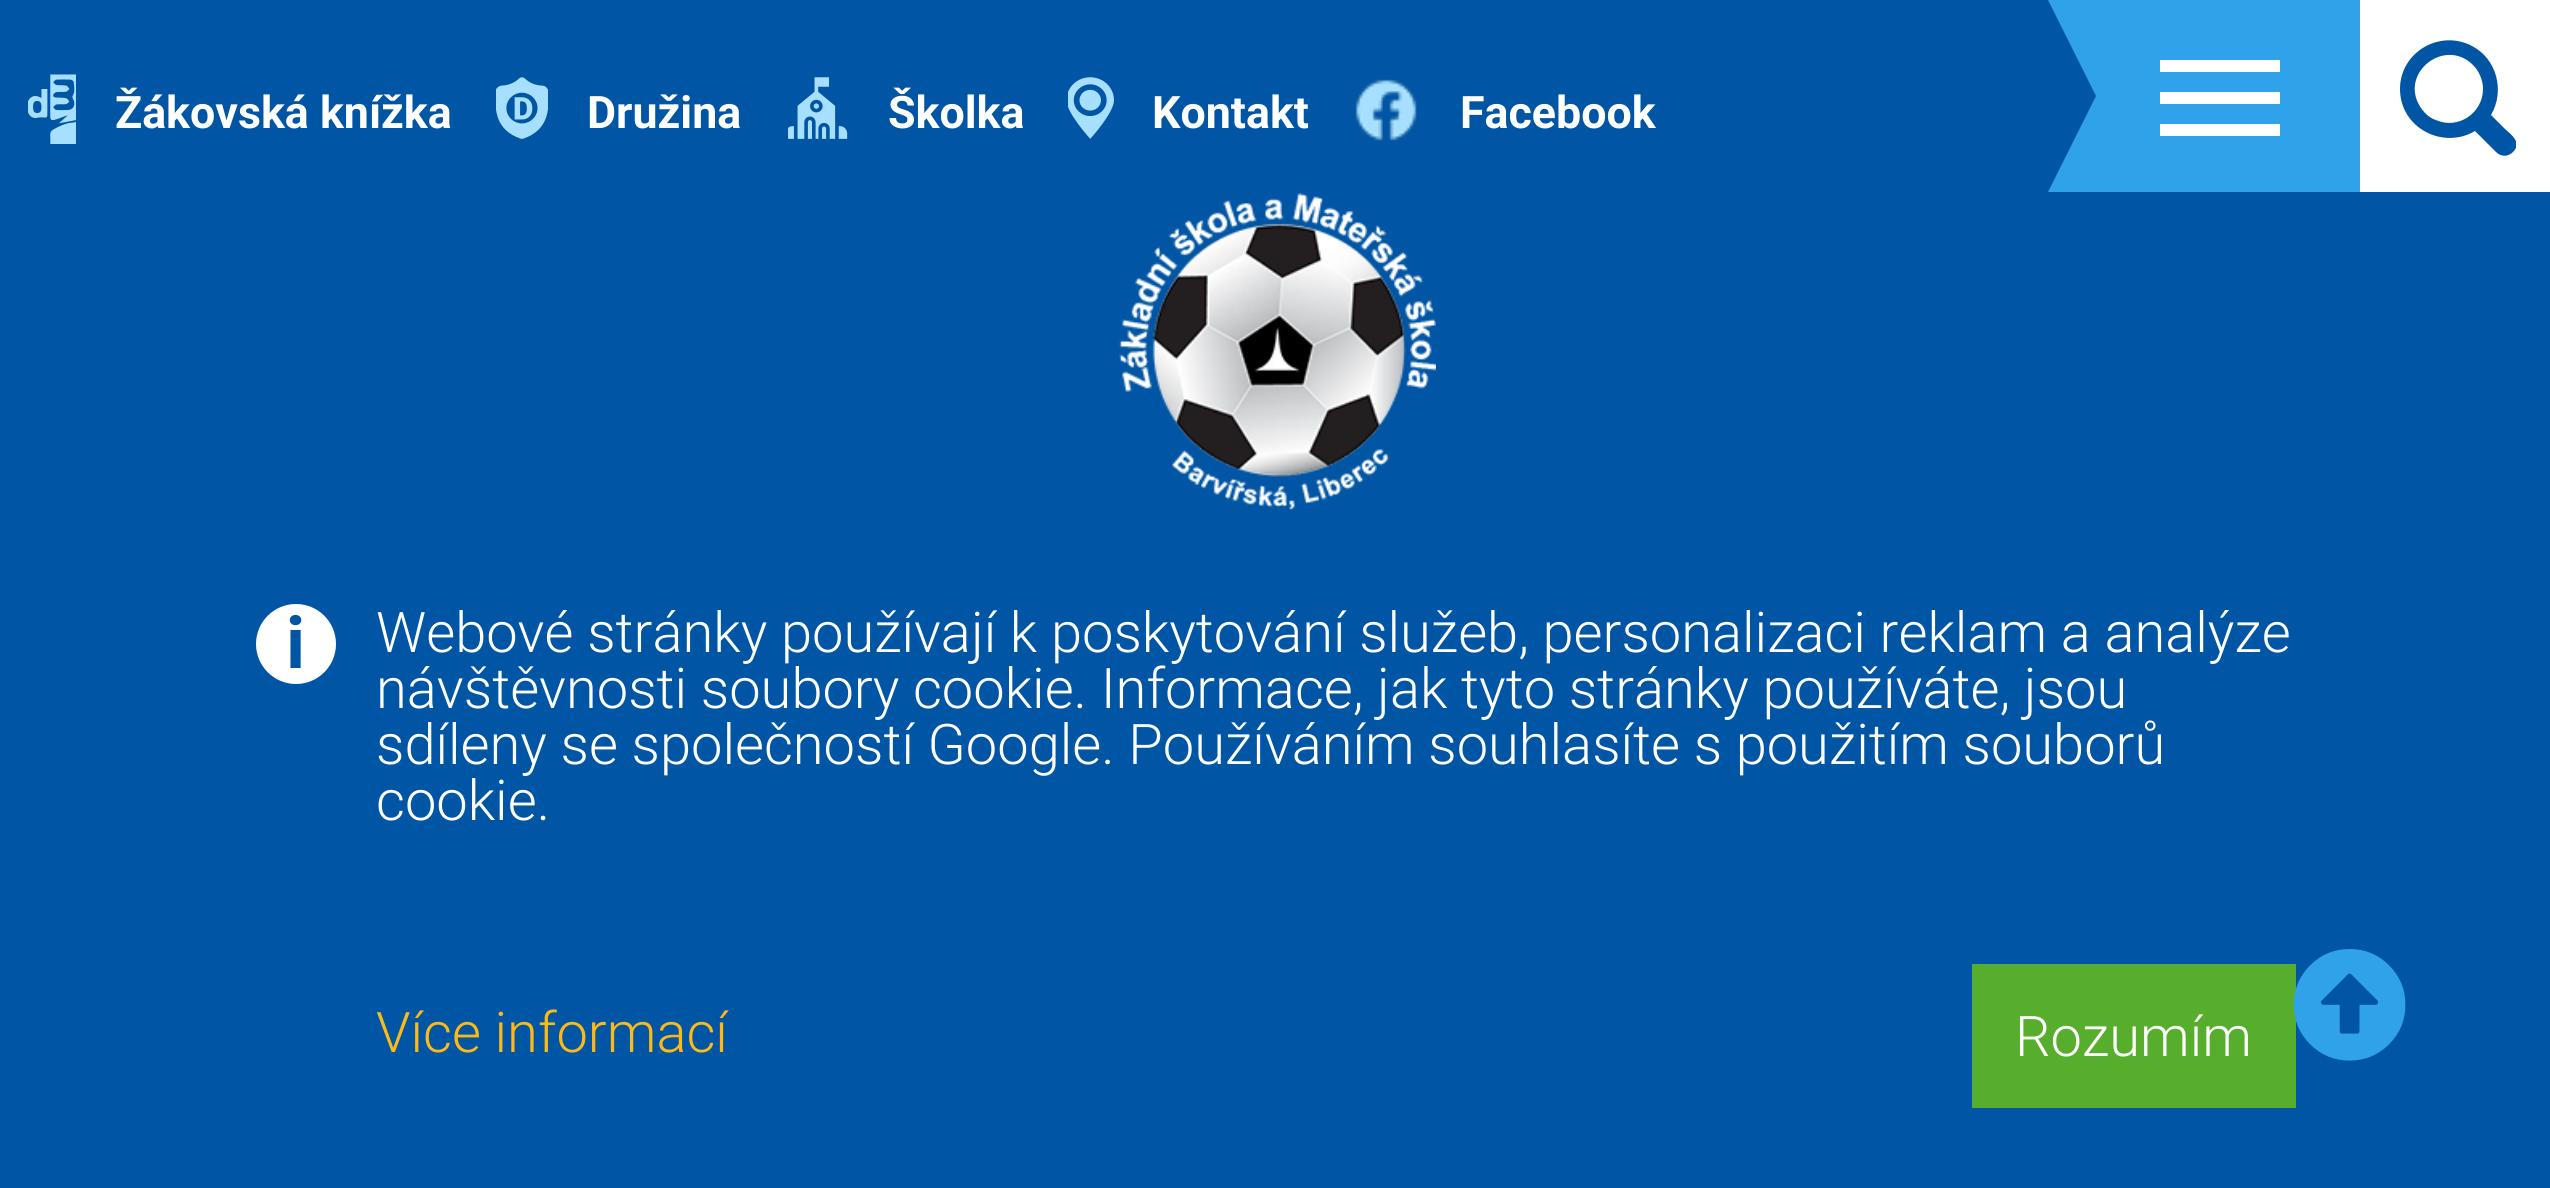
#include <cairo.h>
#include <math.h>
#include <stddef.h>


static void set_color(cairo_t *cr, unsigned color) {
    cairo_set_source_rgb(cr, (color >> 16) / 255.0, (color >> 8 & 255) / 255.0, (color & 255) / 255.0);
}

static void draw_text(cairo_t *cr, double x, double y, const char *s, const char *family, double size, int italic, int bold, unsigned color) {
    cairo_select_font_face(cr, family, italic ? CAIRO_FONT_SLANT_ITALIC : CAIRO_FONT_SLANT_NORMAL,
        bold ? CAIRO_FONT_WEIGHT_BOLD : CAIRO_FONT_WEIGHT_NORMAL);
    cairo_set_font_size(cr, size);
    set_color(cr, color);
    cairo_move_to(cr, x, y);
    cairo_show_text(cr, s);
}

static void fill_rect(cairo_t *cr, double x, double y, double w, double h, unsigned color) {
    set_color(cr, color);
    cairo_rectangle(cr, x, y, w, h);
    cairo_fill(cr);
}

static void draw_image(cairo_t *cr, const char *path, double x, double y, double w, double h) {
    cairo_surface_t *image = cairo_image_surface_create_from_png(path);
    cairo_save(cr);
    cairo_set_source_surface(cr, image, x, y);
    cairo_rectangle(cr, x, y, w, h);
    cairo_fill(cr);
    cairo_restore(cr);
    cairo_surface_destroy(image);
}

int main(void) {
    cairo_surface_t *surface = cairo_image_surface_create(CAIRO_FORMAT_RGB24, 2550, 1188);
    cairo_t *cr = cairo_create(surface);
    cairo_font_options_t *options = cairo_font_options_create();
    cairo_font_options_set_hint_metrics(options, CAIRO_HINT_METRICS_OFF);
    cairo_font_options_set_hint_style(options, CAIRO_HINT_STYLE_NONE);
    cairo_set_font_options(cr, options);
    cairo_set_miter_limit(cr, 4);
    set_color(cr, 0x0055A4);
    cairo_paint(cr);
    draw_image(cr, "assets/img1.png", 28, 74, 48, 70);
    draw_text(cr, 115, 128, "Žákovská knížka", "Roboto", 44.75, 0, 1, 0xFFFFFF);
    draw_image(cr, "assets/img2.png", 496, 77, 52, 62);
    draw_text(cr, 587, 128, "Družina", "Roboto", 44.75, 0, 1, 0xFFFFFF);
    draw_image(cr, "assets/img3.png", 788, 77, 60, 62);
    draw_text(cr, 888, 128, "Školka", "Roboto", 44.75, 0, 1, 0xFFFFFF);
    draw_image(cr, "assets/img4.png", 1068, 77, 46, 62);
    draw_text(cr, 1152, 128, "Kontakt", "Roboto", 44.75, 0, 1, 0xFFFFFF);
    draw_image(cr, "assets/img5.png", 1355, 79, 62, 62);
    draw_text(cr, 1460, 128, "Facebook", "Roboto", 44.75, 0, 1, 0xFFFFFF);
    cairo_save(cr);
    cairo_rectangle(cr, 2016, 0, 344, 192);
    cairo_clip(cr);
    set_color(cr, 0x30A2EA);
    cairo_new_path(cr);
    cairo_move_to(cr, 2016, -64);
    cairo_line_to(cr, 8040, -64);
    cairo_line_to(cr, 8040, 256);
    cairo_line_to(cr, 2016, 256);
    cairo_line_to(cr, 2096, 96);
    cairo_close_path(cr);
    cairo_fill(cr);
    cairo_restore(cr);
    fill_rect(cr, 2160, 60, 120, 12, 0xFFFFFF);
    fill_rect(cr, 2160, 92, 120, 12, 0xFFFFFF);
    fill_rect(cr, 2160, 124, 120, 12, 0xFFFFFF);
    fill_rect(cr, 2360, 0, 190, 192, 0xFFFFFF);
    cairo_save(cr);
    cairo_rectangle(cr, 2400, 40, 116, 116);
    cairo_clip(cr);
    set_color(cr, 0x0055A4);
    cairo_new_path(cr);
    cairo_move_to(cr, 2513, 152);
    cairo_curve_to(cr, 2508, 157, 2501, 157, 2496, 152);
    cairo_line_to(cr, 2475, 131);
    cairo_curve_to(cr, 2443, 150, 2400, 128, 2400, 89);
    cairo_curve_to(cr, 2400, 52, 2440, 29, 2472, 46);
    cairo_curve_to(cr, 2497, 59, 2505, 91, 2491, 115);
    cairo_line_to(cr, 2505, 129);
    cairo_curve_to(cr, 2512, 135, 2522, 143, 2513, 152);
    cairo_close_path(cr);
    cairo_move_to(cr, 2473, 65);
    cairo_curve_to(cr, 2443, 35, 2393, 78, 2425, 113);
    cairo_curve_to(cr, 2428, 116, 2432, 119, 2436, 120);
    cairo_curve_to(cr, 2458, 130, 2483, 113, 2483, 89);
    cairo_curve_to(cr, 2483, 80, 2479, 71, 2473, 65);
    cairo_close_path(cr);
    cairo_fill(cr);
    cairo_restore(cr);
    draw_image(cr, "assets/img6.png", 1119, 193, 317, 318);
    fill_rect(cr, 1972, 964, 324, 144, 0x56AE2C);
    draw_image(cr, "assets/img7.png", 2293, 949, 113, 112);
    set_color(cr, 0xFFFFFF);
    cairo_arc(cr, 296, 644, 40, 0, 2 * M_PI);
    cairo_fill(cr);
    draw_text(cr, 286, 668, "i", "Roboto", 72, 0, 1, 0x0055A4);
    draw_text(cr, 376, 652, "Webové stránky používají k poskytování služeb, personalizaci reklam a analýze", "Roboto Light", 56, 0, 0, 0xFFFFFF);
    draw_text(cr, 376, 708, "návštěvnosti soubory cookie. Informace, jak tyto stránky používáte, jsou", "Roboto Light", 56, 0, 0, 0xFFFFFF);
    draw_text(cr, 376, 764, "sdíleny se společností Google. Používáním souhlasíte s použitím souborů", "Roboto Light", 56, 0, 0, 0xFFFFFF);
    draw_text(cr, 376, 820, "cookie.", "Roboto Light", 56, 0, 0, 0xFFFFFF);
    draw_text(cr, 376, 1052, "Více informací", "Roboto Light", 56, 0, 0, 0xFDB917);
    draw_text(cr, 2015, 1056, "Rozumím", "Roboto Light", 56, 0, 0, 0xFFFFFF);
    cairo_surface_write_to_png(surface, "output.png");
    cairo_font_options_destroy(options);
    cairo_destroy(cr);
    cairo_surface_destroy(surface);
    return 0;
}
